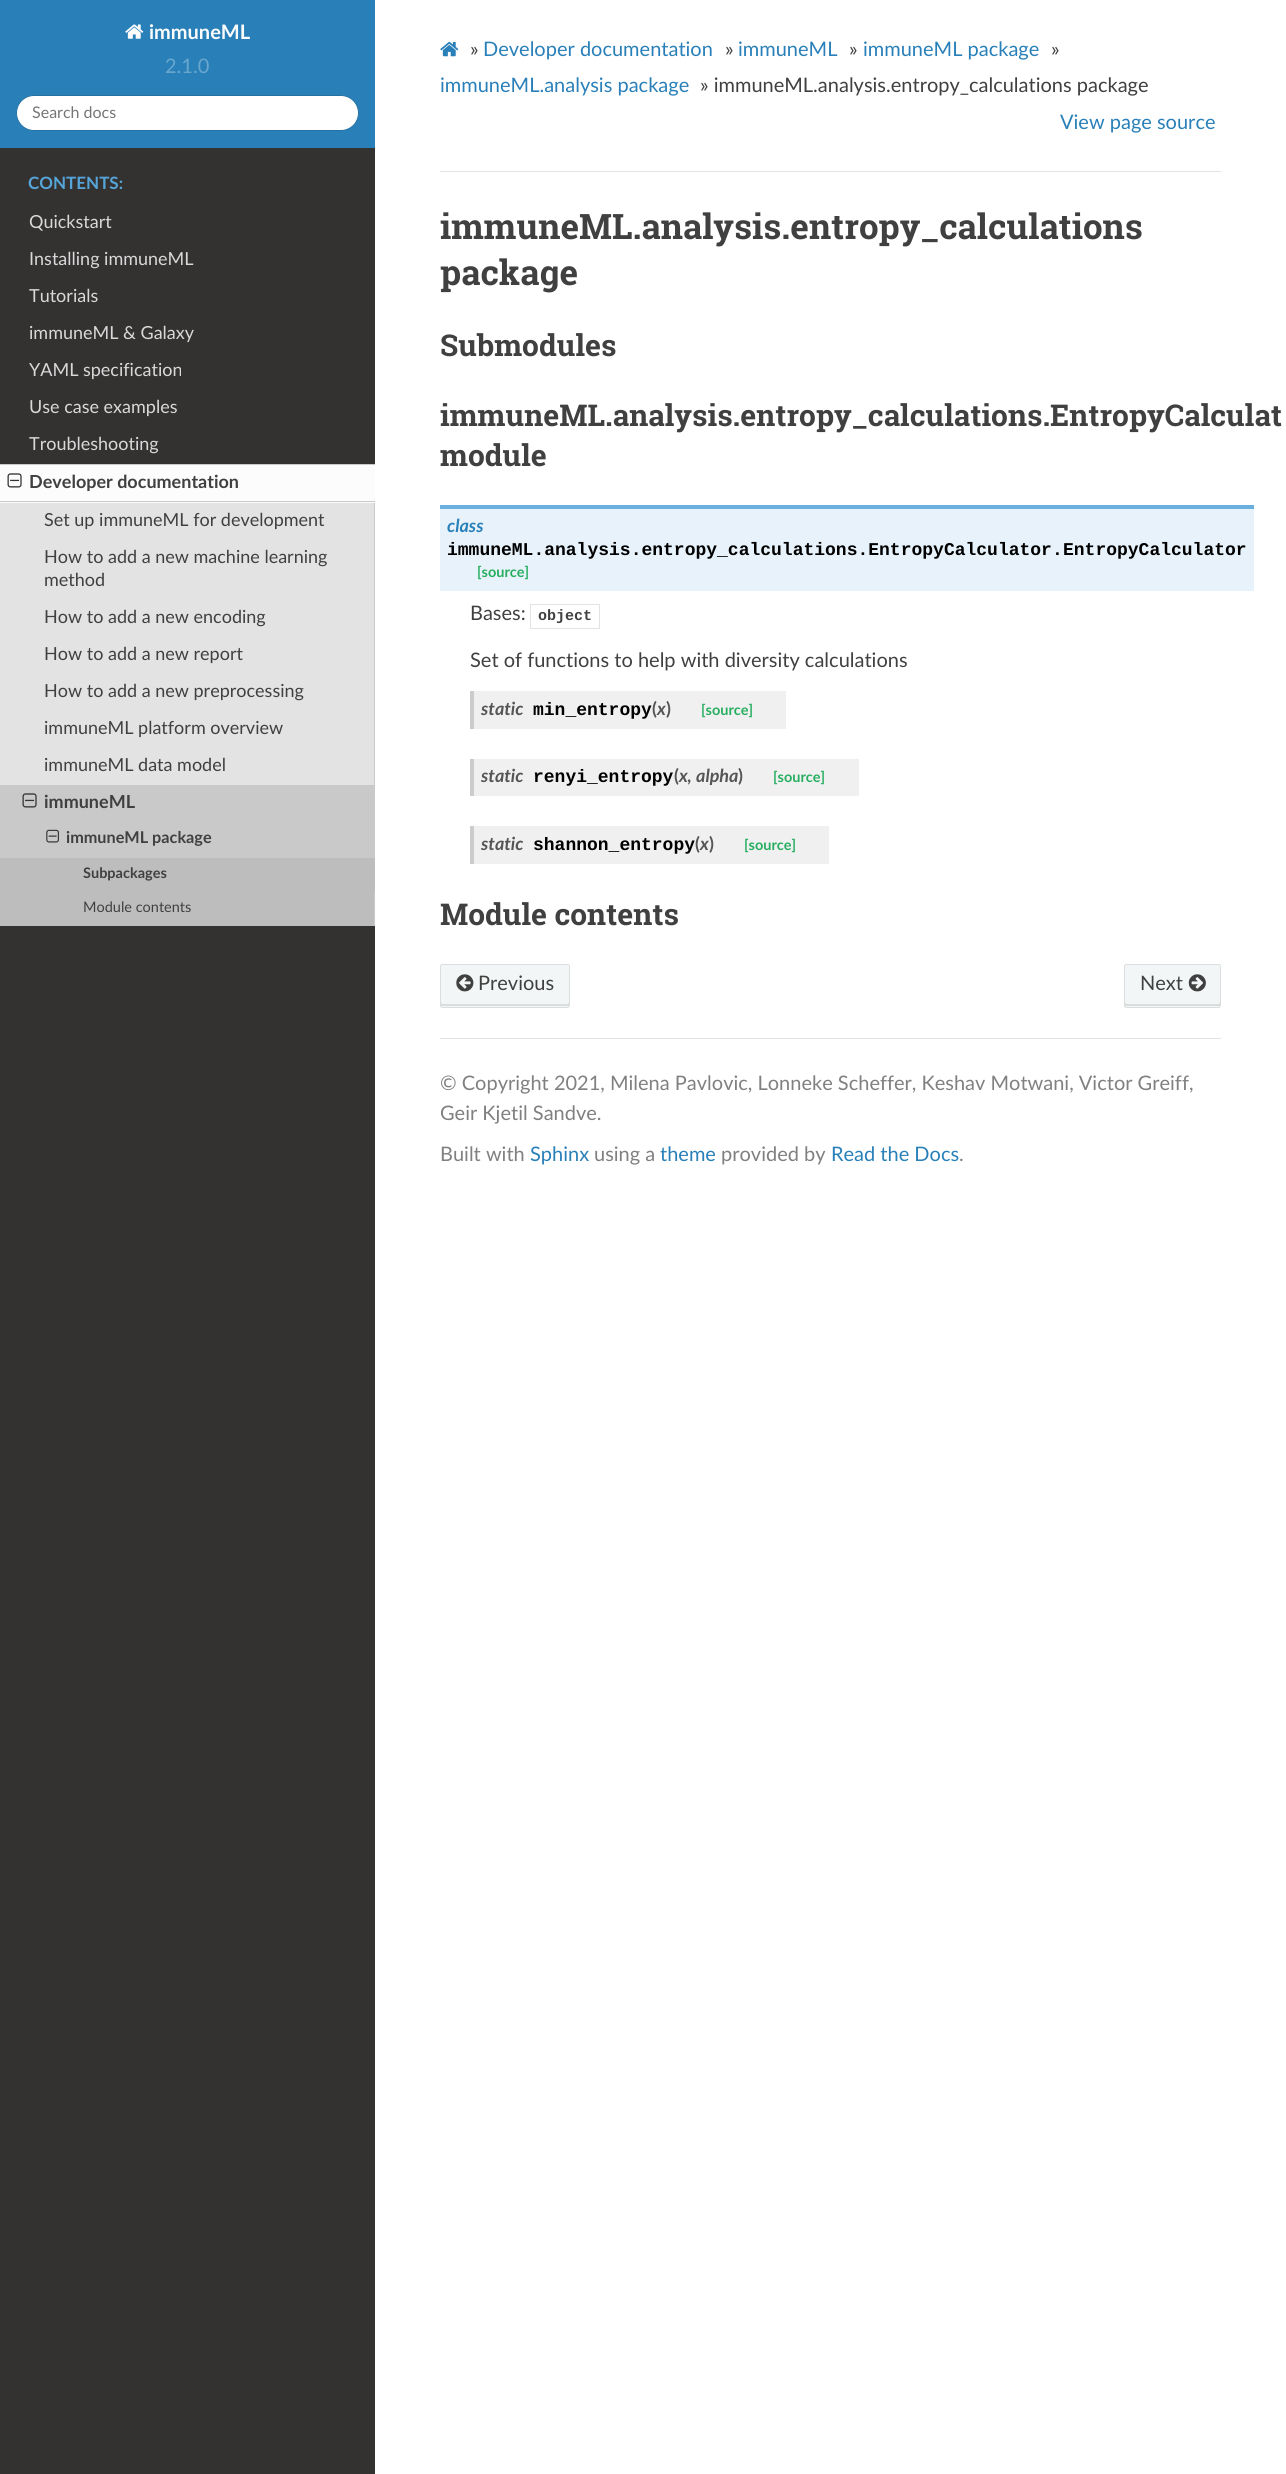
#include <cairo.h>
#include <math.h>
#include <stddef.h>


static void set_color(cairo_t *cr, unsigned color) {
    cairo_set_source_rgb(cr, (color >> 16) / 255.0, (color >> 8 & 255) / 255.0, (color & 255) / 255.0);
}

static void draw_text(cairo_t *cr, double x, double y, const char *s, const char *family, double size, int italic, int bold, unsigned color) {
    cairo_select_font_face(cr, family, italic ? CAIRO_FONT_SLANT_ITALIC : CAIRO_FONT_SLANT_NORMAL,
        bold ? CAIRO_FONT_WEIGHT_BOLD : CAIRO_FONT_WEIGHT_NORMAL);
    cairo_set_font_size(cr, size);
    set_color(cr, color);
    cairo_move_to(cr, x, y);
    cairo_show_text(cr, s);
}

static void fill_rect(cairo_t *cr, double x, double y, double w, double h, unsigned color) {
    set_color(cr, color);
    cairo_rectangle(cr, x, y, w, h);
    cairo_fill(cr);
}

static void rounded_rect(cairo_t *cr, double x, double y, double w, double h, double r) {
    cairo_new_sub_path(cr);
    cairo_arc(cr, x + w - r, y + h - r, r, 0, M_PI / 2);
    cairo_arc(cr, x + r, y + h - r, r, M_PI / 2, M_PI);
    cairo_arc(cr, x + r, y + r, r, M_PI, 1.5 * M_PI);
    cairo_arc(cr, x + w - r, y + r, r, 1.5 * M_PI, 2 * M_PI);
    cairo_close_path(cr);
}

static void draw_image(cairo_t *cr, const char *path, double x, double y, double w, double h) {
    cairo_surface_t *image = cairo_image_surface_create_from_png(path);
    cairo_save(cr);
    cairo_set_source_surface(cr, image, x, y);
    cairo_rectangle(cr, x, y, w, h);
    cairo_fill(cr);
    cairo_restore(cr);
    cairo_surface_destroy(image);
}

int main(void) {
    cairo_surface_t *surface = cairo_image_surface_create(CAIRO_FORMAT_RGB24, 1286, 2474);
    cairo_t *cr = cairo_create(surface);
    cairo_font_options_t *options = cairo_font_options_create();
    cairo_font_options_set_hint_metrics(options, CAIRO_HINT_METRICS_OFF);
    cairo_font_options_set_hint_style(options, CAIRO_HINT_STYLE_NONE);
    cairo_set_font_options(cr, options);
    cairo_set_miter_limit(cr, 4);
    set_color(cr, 0xFFFFFF);
    cairo_paint(cr);
    fill_rect(cr, 0, 148, 375, 2326, 0x343131);
    fill_rect(cr, 0, 0, 375, 148, 0x2980B9);
    draw_image(cr, "assets/img1.png", 125, 24, 19, 15);
    draw_text(cr, 149, 39, "immuneML", "Lato", 20, 0, 1, 0xFCFCFC);
    draw_text(cr, 165, 73, "2.1.0", "Lato", 20, 0, 0, 0x69A6CE);
    set_color(cr, 0xFFFFFF);
    rounded_rect(cr, 16.5, 95.5, 342, 35, 17.5);
    cairo_fill_preserve(cr);
    set_color(cr, 0x2472A4);
    cairo_set_line_width(cr, 1);
    cairo_stroke(cr);
    draw_text(cr, 32, 118, "Search docs", "Lato", 16, 0, 0, 0x757575);
    draw_text(cr, 28, 189, "CONTENTS:", "Lato", 17, 0, 1, 0x55A5D9);
    draw_text(cr, 29, 228, "Quickstart", "Lato", 18, 0, 0, 0xD9D9D9);
    draw_text(cr, 29, 265, "Installing immuneML", "Lato", 18, 0, 0, 0xD9D9D9);
    draw_text(cr, 29, 302, "Tutorials", "Lato", 18, 0, 0, 0xD9D9D9);
    draw_text(cr, 29, 339, "immuneML & Galaxy", "Lato", 18, 0, 0, 0xD9D9D9);
    draw_text(cr, 29, 376, "YAML specification", "Lato", 18, 0, 0, 0xD9D9D9);
    draw_text(cr, 29, 413, "Use case examples", "Lato", 18, 0, 0, 0xD9D9D9);
    draw_text(cr, 29, 450, "Troubleshooting", "Lato", 18, 0, 0, 0xD9D9D9);
    fill_rect(cr, 0, 503, 374, 282, 0xE3E3E3);
    fill_rect(cr, 0, 465, 375, 38, 0xFCFCFC);
    fill_rect(cr, 0, 464, 375, 1, 0xC9C9C9);
    fill_rect(cr, 0, 501, 375, 1, 0xC9C9C9);
    draw_image(cr, "assets/img2.png", 7, 473, 15, 15);
    draw_text(cr, 29, 488, "Developer documentation", "Lato", 18, 0, 1, 0x404040);
    fill_rect(cr, 374, 503, 1, 282, 0xC9C9C9);
    draw_text(cr, 44, 526, "Set up immuneML for development", "Lato", 18, 0, 0, 0x404040);
    draw_text(cr, 44, 563, "How to add a new machine learning", "Lato", 18, 0, 0, 0x404040);
    draw_text(cr, 44, 586, "method", "Lato", 18, 0, 0, 0x404040);
    draw_text(cr, 44, 623, "How to add a new encoding", "Lato", 18, 0, 0, 0x404040);
    draw_text(cr, 44, 660, "How to add a new report", "Lato", 18, 0, 0, 0x404040);
    draw_text(cr, 44, 697, "How to add a new preprocessing", "Lato", 18, 0, 0, 0x404040);
    draw_text(cr, 44, 734, "immuneML platform overview", "Lato", 18, 0, 0, 0x404040);
    draw_text(cr, 44, 771, "immuneML data model", "Lato", 18, 0, 0, 0x404040);
    fill_rect(cr, 0, 785, 375, 73, 0xC9C9C9);
    draw_image(cr, "assets/img3.png", 22, 793, 15, 15);
    draw_text(cr, 44, 808, "immuneML", "Lato", 18, 0, 1, 0x404040);
    draw_image(cr, "assets/img4.png", 46, 829, 13, 14);
    draw_text(cr, 66, 843, "immuneML package", "Lato", 16.25, 0, 1, 0x404040);
    fill_rect(cr, 0, 858, 375, 33, 0xBDBDBD);
    draw_text(cr, 83, 878, "Subpackages", "Lato", 14.5, 0, 1, 0x404040);
    fill_rect(cr, 0, 891, 374, 35, 0xBDBDBD);
    fill_rect(cr, 374, 891, 1, 35, 0xC9C9C9);
    draw_text(cr, 83, 912, "Module contents", "Lato", 14.5, 0, 0, 0x404040);
    draw_image(cr, "assets/img5.png", 440, 41, 19, 16);
    draw_text(cr, 470, 56, "»", "Lato", 20, 0, 0, 0x404040);
    draw_text(cr, 483, 56, "Developer documentation", "Lato", 20, 0, 0, 0x2980B9);
    draw_text(cr, 725, 56, "»", "Lato", 20, 0, 0, 0x404040);
    draw_text(cr, 738, 56, "immuneML", "Lato", 20, 0, 0, 0x2980B9);
    draw_text(cr, 849, 56, "»", "Lato", 20, 0, 0, 0x404040);
    draw_text(cr, 863, 56, "immuneML package", "Lato", 20, 0, 0, 0x2980B9);
    draw_text(cr, 1051, 56, "»", "Lato", 20, 0, 0, 0x404040);
    draw_text(cr, 440, 92, "immuneML.analysis package", "Lato", 20, 0, 0, 0x2980B9);
    draw_text(cr, 700, 92, "» immuneML.analysis.entropy_calculations package", "Lato", 20, 0, 0, 0x404040);
    draw_text(cr, 1060, 129, "View page source", "Lato", 20, 0, 0, 0x2980B9);
    fill_rect(cr, 440, 171, 781, 1, 0xE1E4E5);
    draw_text(cr, 440, 239, "immuneML.analysis.entropy_calculations", "Roboto Slab", 35, 0, 1, 0x404040);
    draw_text(cr, 440, 285, "package", "Roboto Slab", 35, 0, 1, 0x404040);
    draw_text(cr, 440, 356, "Submodules", "Roboto Slab", 30, 0, 1, 0x404040);
    draw_text(cr, 440, 426, "immuneML.analysis.entropy_calculations.EntropyCalculat", "Roboto Slab", 30, 0, 1, 0x404040);
    draw_text(cr, 440, 466, "module", "Roboto Slab", 30, 0, 1, 0x404040);
    fill_rect(cr, 440, 509, 814, 82, 0xE7F2FA);
    fill_rect(cr, 440, 505, 814, 4, 0x6AB0DE);
    draw_text(cr, 447, 532, "class", "Lato", 18, 1, 1, 0x2980B9);
    draw_text(cr, 447, 555, "immuneML.analysis.entropy_calculations.EntropyCalculator.", "Liberation Mono", 18, 0, 1, 0x000000);
    draw_text(cr, 1063, 555, "EntropyCalculator", "Liberation Mono", 18, 0, 1, 0x000000);
    draw_text(cr, 477, 577, "[source]", "Lato", 14.5, 0, 1, 0x27AE60);
    draw_text(cr, 470, 620, "Bases:", "Lato", 20, 0, 0, 0x404040);
    cairo_rectangle(cr, 530.5, 604.5, 69, 24);
    set_color(cr, 0xE1E4E5);
    cairo_stroke(cr);
    draw_text(cr, 538, 620, "object", "Liberation Mono", 15, 0, 1, 0x404040);
    draw_text(cr, 470, 667, "Set of functions to help with diversity calculations", "Lato", 20, 0, 0, 0x404040);
    fill_rect(cr, 474, 691, 312, 38, 0xF0F0F0);
    fill_rect(cr, 470, 691, 4, 38, 0xCCCCCC);
    draw_text(cr, 481, 715, "static", "Lato", 18, 1, 1, 0x555555);
    draw_text(cr, 533, 715, "min_entropy", "Liberation Mono", 18, 0, 1, 0x000000);
    draw_text(cr, 652, 715, "(", "Lato", 18, 0, 1, 0x555555);
    draw_text(cr, 657, 715, "x", "Lato", 18, 1, 1, 0x555555);
    draw_text(cr, 666, 715, ")", "Lato", 18, 0, 1, 0x555555);
    draw_text(cr, 701, 715, "[source]", "Lato", 14.5, 0, 1, 0x27AE60);
    fill_rect(cr, 474, 759, 385, 37, 0xF0F0F0);
    fill_rect(cr, 470, 759, 4, 37, 0xCCCCCC);
    draw_text(cr, 481, 782, "static", "Lato", 18, 1, 1, 0x555555);
    draw_text(cr, 533, 782, "renyi_entropy", "Liberation Mono", 18, 0, 1, 0x000000);
    draw_text(cr, 674, 782, "(", "Lato", 18, 0, 1, 0x555555);
    draw_text(cr, 679, 782, "x", "Lato", 18, 1, 1, 0x555555);
    draw_text(cr, 687, 782, ",", "Lato", 18, 0, 1, 0x555555);
    draw_text(cr, 696, 782, "alpha", "Lato", 18, 1, 1, 0x555555);
    draw_text(cr, 738, 782, ")", "Lato", 18, 0, 1, 0x555555);
    draw_text(cr, 773, 782, "[source]", "Lato", 14.5, 0, 1, 0x27AE60);
    fill_rect(cr, 474, 826, 355, 38, 0xF0F0F0);
    fill_rect(cr, 470, 826, 4, 38, 0xCCCCCC);
    draw_text(cr, 481, 850, "static", "Lato", 18, 1, 1, 0x555555);
    draw_text(cr, 533, 850, "shannon_entropy", "Liberation Mono", 18, 0, 1, 0x000000);
    draw_text(cr, 695, 850, "(", "Lato", 18, 0, 1, 0x555555);
    draw_text(cr, 700, 850, "x", "Lato", 18, 1, 1, 0x555555);
    draw_text(cr, 709, 850, ")", "Lato", 18, 0, 1, 0x555555);
    draw_text(cr, 744, 850, "[source]", "Lato", 14.5, 0, 1, 0x27AE60);
    draw_text(cr, 440, 925, "Module contents", "Roboto Slab", 30, 0, 1, 0x404040);
    set_color(cr, 0xF3F6F6);
    rounded_rect(cr, 440, 964, 130, 44, 2.5);
    cairo_fill(cr);
    set_color(cr, 0xDBDDDD);
    cairo_new_path(cr);
    cairo_move_to(cr, 441, 1002);
    cairo_line_to(cr, 441, 1005);
    cairo_curve_to(cr, 441, 1006, 441, 1006, 442, 1006);
    cairo_line_to(cr, 568, 1006);
    cairo_curve_to(cr, 569, 1006, 569, 1006, 569, 1005);
    cairo_line_to(cr, 569, 1002);
    cairo_line_to(cr, 568, 1004);
    cairo_line_to(cr, 442, 1004);
    cairo_close_path(cr);
    cairo_fill(cr);
    rounded_rect(cr, 440.5, 964.5, 129, 43, 2);
    cairo_set_source_rgba(cr, 0, 0, 0, 0.1);
    cairo_stroke(cr);
    draw_image(cr, "assets/img6.png", 456, 974, 18, 18);
    draw_text(cr, 478, 990, "Previous", "Lato", 20, 0, 0, 0x404040);
    set_color(cr, 0xF3F6F6);
    rounded_rect(cr, 1124, 964, 97, 44, 2.5);
    cairo_fill(cr);
    set_color(cr, 0xDBDDDD);
    cairo_new_path(cr);
    cairo_move_to(cr, 1125, 1002);
    cairo_line_to(cr, 1125, 1005);
    cairo_curve_to(cr, 1125, 1006, 1125, 1006, 1126, 1006);
    cairo_line_to(cr, 1219, 1006);
    cairo_curve_to(cr, 1220, 1006, 1220, 1006, 1220, 1005);
    cairo_line_to(cr, 1220, 1002);
    cairo_line_to(cr, 1219, 1004);
    cairo_line_to(cr, 1126, 1004);
    cairo_close_path(cr);
    cairo_fill(cr);
    rounded_rect(cr, 1124.5, 964.5, 96, 43, 2);
    cairo_set_source_rgba(cr, 0, 0, 0, 0.1);
    cairo_stroke(cr);
    draw_text(cr, 1140, 990, "Next", "Lato", 20, 0, 0, 0x404040);
    draw_image(cr, "assets/img7.png", 1188, 974, 18, 18);
    fill_rect(cr, 440, 1038, 781, 1, 0xE1E4E5);
    draw_text(cr, 440, 1090, "© Copyright 2021, Milena Pavlovic, Lonneke Scheffer, Keshav Motwani, Victor Greiff,", "Lato", 20, 0, 0, 0x808080);
    draw_text(cr, 440, 1120, "Geir Kjetil Sandve.", "Lato", 20, 0, 0, 0x808080);
    draw_text(cr, 440, 1161, "Built with", "Lato", 20, 0, 0, 0x808080);
    draw_text(cr, 530, 1161, "Sphinx", "Lato", 20, 0, 0, 0x2980B9);
    draw_text(cr, 594, 1161, "using a", "Lato", 20, 0, 0, 0x808080);
    draw_text(cr, 660, 1161, "theme", "Lato", 20, 0, 0, 0x2980B9);
    draw_text(cr, 721, 1161, "provided by", "Lato", 20, 0, 0, 0x808080);
    draw_text(cr, 831, 1161, "Read the Docs", "Lato", 20, 0, 0, 0x2980B9);
    draw_text(cr, 959, 1161, ".", "Lato", 20, 0, 0, 0x808080);
    cairo_surface_write_to_png(surface, "output.png");
    cairo_font_options_destroy(options);
    cairo_destroy(cr);
    cairo_surface_destroy(surface);
    return 0;
}
